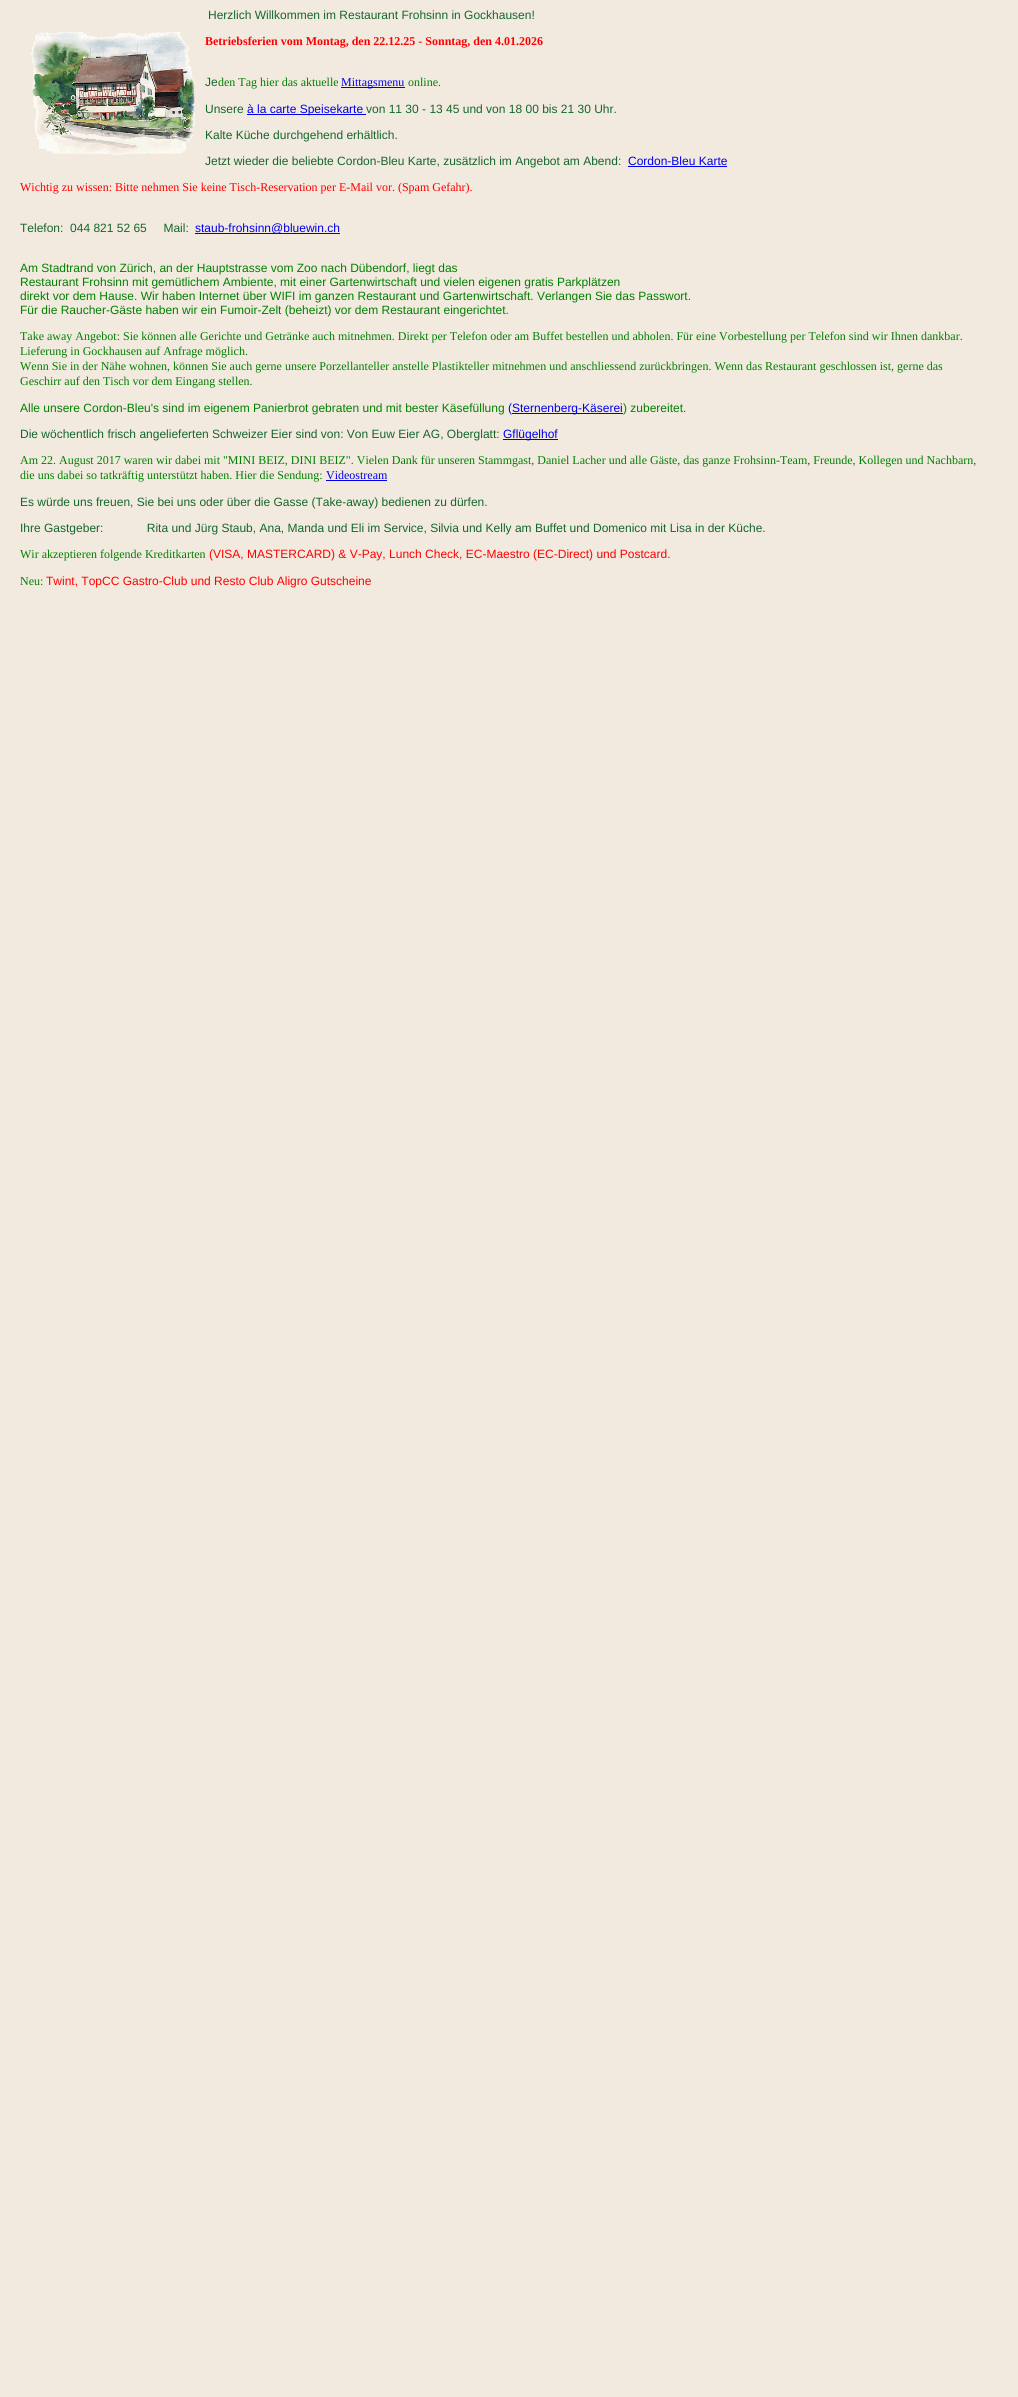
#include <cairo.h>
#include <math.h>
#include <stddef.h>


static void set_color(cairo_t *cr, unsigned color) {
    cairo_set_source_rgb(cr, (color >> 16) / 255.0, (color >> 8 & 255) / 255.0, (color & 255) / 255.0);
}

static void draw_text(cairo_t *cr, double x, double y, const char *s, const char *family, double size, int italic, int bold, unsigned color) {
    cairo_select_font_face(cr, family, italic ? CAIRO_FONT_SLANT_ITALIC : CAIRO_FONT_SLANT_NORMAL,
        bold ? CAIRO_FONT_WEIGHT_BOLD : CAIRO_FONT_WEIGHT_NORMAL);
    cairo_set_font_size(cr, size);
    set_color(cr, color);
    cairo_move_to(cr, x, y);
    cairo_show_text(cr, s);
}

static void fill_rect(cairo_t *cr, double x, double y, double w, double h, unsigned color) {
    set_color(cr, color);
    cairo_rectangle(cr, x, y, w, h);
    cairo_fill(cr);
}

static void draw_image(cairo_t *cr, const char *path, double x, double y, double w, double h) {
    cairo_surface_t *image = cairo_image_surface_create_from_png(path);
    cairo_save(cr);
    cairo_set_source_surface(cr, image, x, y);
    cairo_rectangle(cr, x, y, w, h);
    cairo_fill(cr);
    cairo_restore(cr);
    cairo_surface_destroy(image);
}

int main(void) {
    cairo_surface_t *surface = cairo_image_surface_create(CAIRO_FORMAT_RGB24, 1018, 2397);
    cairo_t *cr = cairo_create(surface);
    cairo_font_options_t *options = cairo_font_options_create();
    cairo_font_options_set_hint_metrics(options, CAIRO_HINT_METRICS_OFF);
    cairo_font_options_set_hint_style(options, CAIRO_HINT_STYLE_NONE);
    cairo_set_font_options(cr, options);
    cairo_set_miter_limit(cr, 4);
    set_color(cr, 0xF2EADF);
    cairo_paint(cr);
    draw_text(cr, 208, 19, "Herzlich Willkommen im Restaurant Frohsinn in Gockhausen!", "Liberation Sans", 12, 0, 0, 0x14662A);
    draw_image(cr, "assets/img1.png", 31, 31, 165, 124);
    draw_text(cr, 205, 45, "Betriebsferien vom Montag, den 22.12.25 - Sonntag, den 4.01.2026", "Liberation Serif", 12, 0, 1, 0xFF0000);
    draw_text(cr, 205, 86, "Je", "Liberation Sans", 12, 0, 0, 0x14662A);
    draw_text(cr, 218, 86, "den Tag hier das aktuelle", "Liberation Serif", 12, 0, 0, 0x008000);
    fill_rect(cr, 341, 87, 64, 1, 0x0000EE);
    draw_text(cr, 341, 86, "Mittagsmenu", "Liberation Serif", 12, 0, 0, 0x0000EE);
    draw_text(cr, 408, 86, "online.", "Liberation Serif", 12, 0, 0, 0x008000);
    draw_text(cr, 205, 113, "Unsere", "Liberation Sans", 12, 0, 0, 0x14662A);
    fill_rect(cr, 247, 114, 119, 1, 0x0000EE);
    draw_text(cr, 247, 113, "à la carte Speisekarte", "Liberation Sans", 12, 0, 0, 0x0000EE);
    draw_text(cr, 366, 113, "von 11 30 - 13 45 und von 18 00 bis 21 30 Uhr.", "Liberation Sans", 12, 0, 0, 0x14662A);
    draw_text(cr, 205, 139, "Kalte Küche durchgehend erhältlich.", "Liberation Sans", 12, 0, 0, 0x14662A);
    draw_text(cr, 205, 165, "Jetzt wieder die beliebte Cordon-Bleu Karte, zusätzlich im Angebot am Abend:", "Liberation Sans", 12, 0, 0, 0x14662A);
    draw_text(cr, 628, 165, "Cordon-Bleu Karte", "Liberation Sans", 12, 0, 0, 0x0000EE);
    fill_rect(cr, 628, 166, 99, 1, 0x0000EE);
    draw_text(cr, 20, 191, "Wichtig zu wissen: Bitte nehmen Sie keine Tisch-Reservation per E-Mail vor. (Spam Gefahr).", "Liberation Serif", 12, 0, 0, 0xFF0000);
    draw_text(cr, 20, 232, "Telefon:  044 821 52 65     Mail:", "Liberation Sans", 12, 0, 0, 0x14662A);
    fill_rect(cr, 195, 233, 145, 1, 0x0000EE);
    draw_text(cr, 195, 232, "staub-frohsinn@bluewin.ch", "Liberation Sans", 12, 0, 0, 0x0000EE);
    draw_text(cr, 20, 272, "Am Stadtrand von Zürich, an der Hauptstrasse vom Zoo nach Dübendorf, liegt das", "Liberation Sans", 12, 0, 0, 0x008000);
    draw_text(cr, 20, 286, "Restaurant Frohsinn mit gemütlichem Ambiente, mit einer Gartenwirtschaft und vielen eigenen gratis Parkplätzen", "Liberation Sans", 12, 0, 0, 0x008000);
    draw_text(cr, 20, 300, "direkt vor dem Hause. Wir haben Internet über WIFI im ganzen Restaurant und Gartenwirtschaft. Verlangen Sie das Passwort.", "Liberation Sans", 12, 0, 0, 0x008000);
    draw_text(cr, 20, 314, "Für die Raucher-Gäste haben wir ein Fumoir-Zelt (beheizt) vor dem Restaurant eingerichtet.", "Liberation Sans", 12, 0, 0, 0x008000);
    draw_text(cr, 20, 340, "Take away Angebot: Sie können alle Gerichte und Getränke auch mitnehmen. Direkt per Telefon oder am Buffet bestellen und abholen. Für eine Vorbestellung per Telefon sind wir Ihnen dankbar.", "Liberation Serif", 12, 0, 0, 0x008000);
    draw_text(cr, 20, 355, "Lieferung in Gockhausen auf Anfrage möglich.", "Liberation Serif", 12, 0, 0, 0x008000);
    draw_text(cr, 20, 370, "Wenn Sie in der Nähe wohnen, können Sie auch gerne unsere Porzellanteller anstelle Plastikteller mitnehmen und anschliessend zurückbringen. Wenn das Restaurant geschlossen ist, gerne das", "Liberation Serif", 12, 0, 0, 0x008000);
    draw_text(cr, 20, 385, "Geschirr auf den Tisch vor dem Eingang stellen.", "Liberation Serif", 12, 0, 0, 0x008000);
    draw_text(cr, 20, 412, "Alle unsere Cordon-Bleu's sind im eigenem Panierbrot gebraten und mit bester Käsefüllung", "Liberation Sans", 12, 0, 0, 0x008000);
    draw_text(cr, 508, 412, "(", "Liberation Sans", 12, 0, 0, 0x0000FF);
    fill_rect(cr, 512, 413, 111, 1, 0x0000EE);
    draw_text(cr, 512, 412, "Sternenberg-Käserei", "Liberation Sans", 12, 0, 0, 0x0000EE);
    draw_text(cr, 623, 412, ") zubereitet.", "Liberation Sans", 12, 0, 0, 0x008000);
    draw_text(cr, 20, 438, "Die wöchentlich frisch angelieferten Schweizer Eier sind von: Von Euw Eier AG, Oberglatt:", "Liberation Sans", 12, 0, 0, 0x14662A);
    fill_rect(cr, 503, 439, 55, 1, 0x0000EE);
    draw_text(cr, 503, 438, "Gflügelhof", "Liberation Sans", 12, 0, 0, 0x0000EE);
    draw_text(cr, 20, 464, "Am 22. August 2017 waren wir dabei mit \"MINI BEIZ, DINI BEIZ\". Vielen Dank für unseren Stammgast, Daniel Lacher und alle Gäste, das ganze Frohsinn-Team, Freunde, Kollegen und Nachbarn,", "Liberation Serif", 12, 0, 0, 0x008000);
    draw_text(cr, 20, 479, "die uns dabei so tatkräftig unterstützt haben. Hier die Sendung:", "Liberation Serif", 12, 0, 0, 0x008000);
    draw_text(cr, 326, 479, "Videostream", "Liberation Serif", 12, 0, 0, 0x0000EE);
    fill_rect(cr, 326, 480, 61, 1, 0x0000EE);
    draw_text(cr, 20, 506, "Es würde uns freuen, Sie bei uns oder über die Gasse (Take-away) bedienen zu dürfen.", "Liberation Sans", 12, 0, 0, 0x14662A);
    draw_text(cr, 20, 532, "Ihre Gastgeber:             Rita und Jürg Staub, Ana, Manda und Eli im Service, Silvia und Kelly am Buffet und Domenico mit Lisa in der Küche.", "Liberation Sans", 12, 0, 0, 0x14662A);
    draw_text(cr, 20, 558, "Wir akzeptieren folgende Kreditkarten", "Liberation Serif", 12, 0, 0, 0x008000);
    draw_text(cr, 209, 558, "(VISA, MASTERCARD) & V-Pay, Lunch Check, EC-Maestro (EC-Direct) und Postcard.", "Liberation Sans", 12, 0, 0, 0xFF0000);
    draw_text(cr, 20, 585, "Neu:", "Liberation Serif", 12, 0, 0, 0x008000);
    draw_text(cr, 46, 585, "Twint, TopCC Gastro-Club und Resto Club Aligro Gutscheine", "Liberation Sans", 12, 0, 0, 0xFF0000);
    cairo_surface_write_to_png(surface, "output.png");
    cairo_font_options_destroy(options);
    cairo_destroy(cr);
    cairo_surface_destroy(surface);
    return 0;
}
